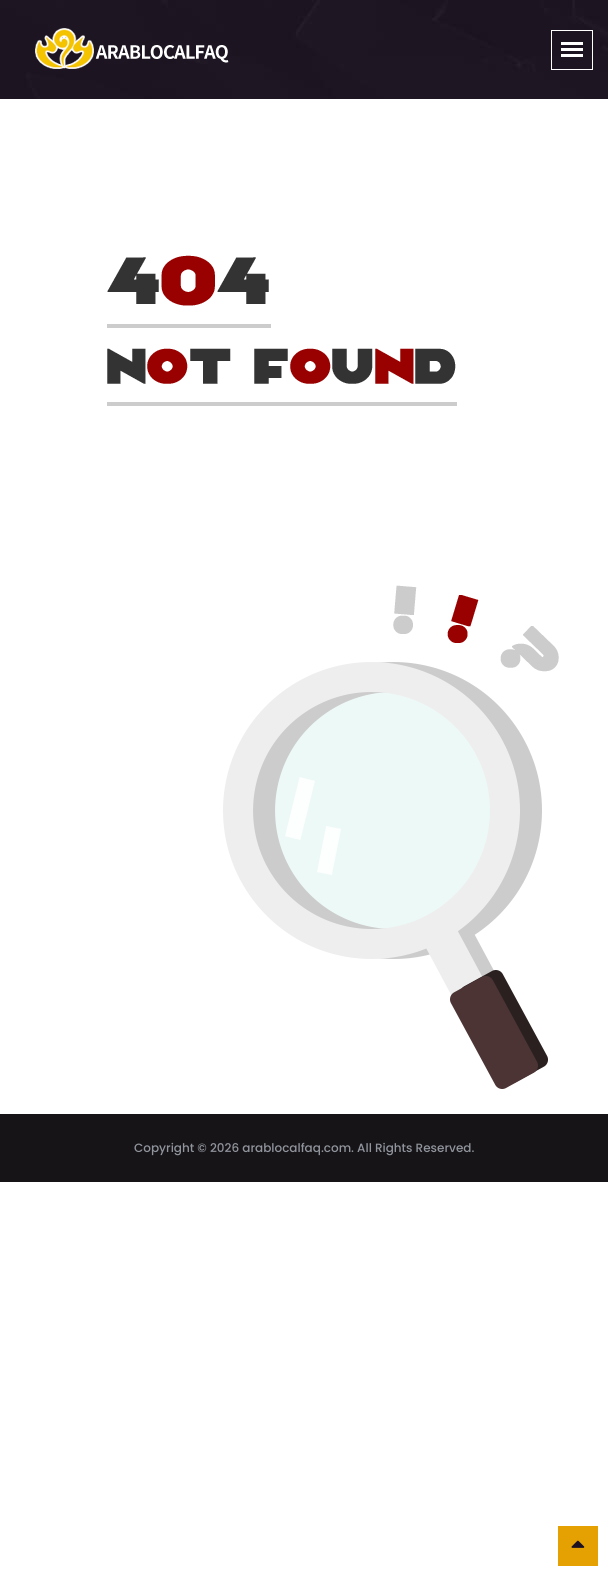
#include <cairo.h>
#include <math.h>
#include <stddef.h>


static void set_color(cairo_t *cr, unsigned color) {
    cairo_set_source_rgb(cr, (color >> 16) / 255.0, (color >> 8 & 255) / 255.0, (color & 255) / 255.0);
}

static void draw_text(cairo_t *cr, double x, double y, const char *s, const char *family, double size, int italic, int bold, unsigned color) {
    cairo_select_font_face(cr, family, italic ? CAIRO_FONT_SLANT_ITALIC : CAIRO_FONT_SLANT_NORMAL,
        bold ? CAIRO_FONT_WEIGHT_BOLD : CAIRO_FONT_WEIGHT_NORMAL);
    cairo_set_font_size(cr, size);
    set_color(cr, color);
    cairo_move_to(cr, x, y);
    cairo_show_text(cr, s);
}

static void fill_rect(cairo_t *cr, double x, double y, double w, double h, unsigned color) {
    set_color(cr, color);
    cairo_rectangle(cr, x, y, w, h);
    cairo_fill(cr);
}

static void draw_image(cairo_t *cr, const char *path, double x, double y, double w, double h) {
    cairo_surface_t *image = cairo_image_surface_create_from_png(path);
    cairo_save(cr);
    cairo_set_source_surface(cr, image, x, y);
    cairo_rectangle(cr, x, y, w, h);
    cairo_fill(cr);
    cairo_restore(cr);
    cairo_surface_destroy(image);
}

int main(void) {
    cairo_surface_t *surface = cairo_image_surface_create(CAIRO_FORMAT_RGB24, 608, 1576);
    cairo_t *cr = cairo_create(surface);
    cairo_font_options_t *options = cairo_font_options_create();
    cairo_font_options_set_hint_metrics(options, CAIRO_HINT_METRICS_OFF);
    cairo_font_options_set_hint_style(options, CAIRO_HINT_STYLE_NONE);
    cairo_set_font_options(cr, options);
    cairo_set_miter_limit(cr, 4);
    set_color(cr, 0xFFFFFF);
    cairo_paint(cr);
    draw_image(cr, "assets/img1.png", 0, 0, 608, 99);
    draw_image(cr, "assets/img2.png", 35, 28, 194, 41);
    cairo_rectangle(cr, 551.5, 30.5, 41, 39);
    set_color(cr, 0xFFFFFF);
    cairo_set_line_width(cr, 1);
    cairo_stroke(cr);
    fill_rect(cr, 561, 42, 22, 3, 0xFFFFFF);
    fill_rect(cr, 561, 48, 22, 3, 0xFFFFFF);
    fill_rect(cr, 561, 54, 22, 3, 0xFFFFFF);
    draw_image(cr, "assets/img3.png", 107, 255, 350, 151);
    draw_image(cr, "assets/img4.png", 223, 585, 336, 504);
    fill_rect(cr, 0, 1114, 608, 68, 0x161417);
    draw_text(cr, 134, 1152, "Copyright © 2026 arablocalfaq.com. All Rights Reserved.", "Poppins Medium", 12, 0, 0, 0x90949C);
    fill_rect(cr, 558, 1526, 40, 40, 0xE4A101);
    draw_image(cr, "assets/img5.png", 571, 1540, 14, 8);
    cairo_surface_write_to_png(surface, "output.png");
    cairo_font_options_destroy(options);
    cairo_destroy(cr);
    cairo_surface_destroy(surface);
    return 0;
}
